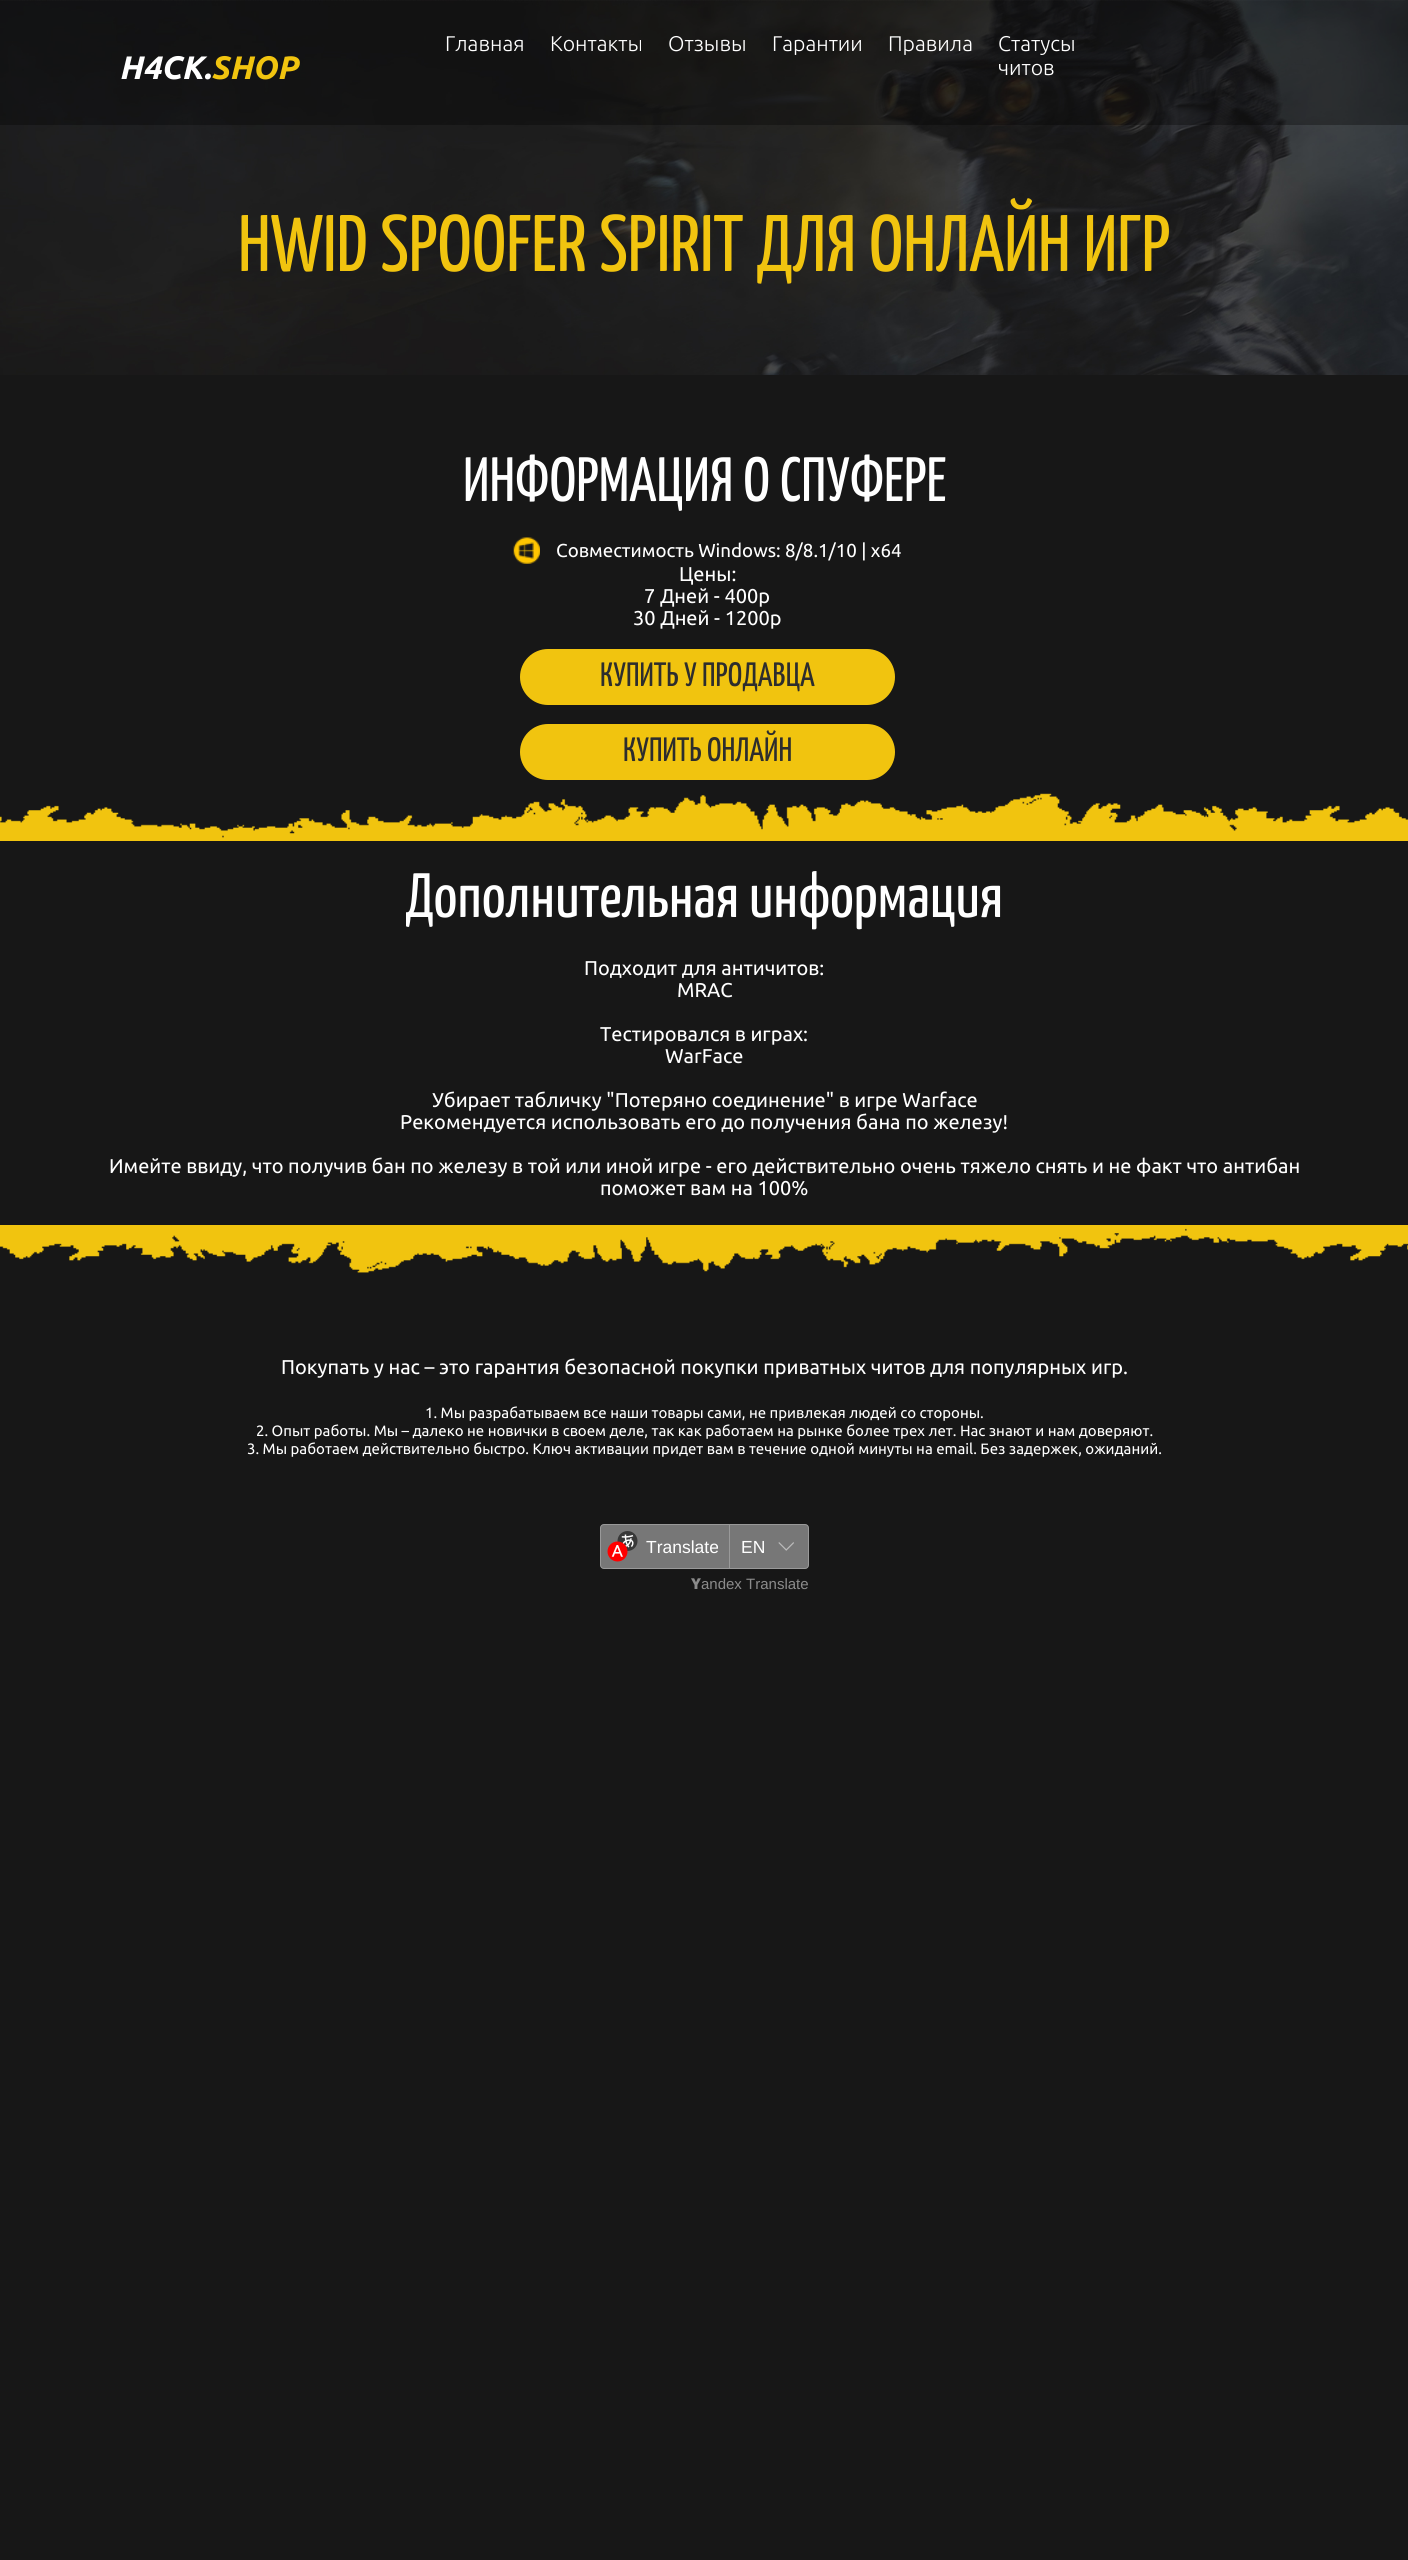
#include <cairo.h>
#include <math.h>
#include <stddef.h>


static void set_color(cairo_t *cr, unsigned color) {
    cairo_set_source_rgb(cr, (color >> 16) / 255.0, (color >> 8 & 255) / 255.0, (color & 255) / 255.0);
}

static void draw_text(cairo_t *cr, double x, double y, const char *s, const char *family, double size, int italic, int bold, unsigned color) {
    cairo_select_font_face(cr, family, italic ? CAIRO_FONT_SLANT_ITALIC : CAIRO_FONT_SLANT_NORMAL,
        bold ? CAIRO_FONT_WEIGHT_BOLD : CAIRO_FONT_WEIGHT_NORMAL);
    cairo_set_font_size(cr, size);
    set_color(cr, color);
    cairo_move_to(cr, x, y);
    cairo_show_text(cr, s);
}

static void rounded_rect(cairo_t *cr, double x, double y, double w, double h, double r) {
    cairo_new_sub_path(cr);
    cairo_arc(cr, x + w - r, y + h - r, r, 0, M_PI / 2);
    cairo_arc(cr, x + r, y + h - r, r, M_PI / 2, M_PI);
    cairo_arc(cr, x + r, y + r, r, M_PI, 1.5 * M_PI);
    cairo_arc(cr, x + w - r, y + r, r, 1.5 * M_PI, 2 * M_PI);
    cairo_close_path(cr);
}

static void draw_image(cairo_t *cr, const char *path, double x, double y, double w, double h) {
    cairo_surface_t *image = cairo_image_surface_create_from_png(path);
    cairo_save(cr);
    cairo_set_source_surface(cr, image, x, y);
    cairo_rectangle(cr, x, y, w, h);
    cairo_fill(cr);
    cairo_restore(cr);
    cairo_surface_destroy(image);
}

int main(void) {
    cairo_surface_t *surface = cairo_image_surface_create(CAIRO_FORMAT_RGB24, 1408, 2560);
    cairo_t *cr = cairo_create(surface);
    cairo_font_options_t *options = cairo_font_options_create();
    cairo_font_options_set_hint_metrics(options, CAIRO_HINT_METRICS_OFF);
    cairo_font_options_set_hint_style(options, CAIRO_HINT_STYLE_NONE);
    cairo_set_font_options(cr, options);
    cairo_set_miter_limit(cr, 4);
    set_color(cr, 0x171717);
    cairo_paint(cr);
    draw_image(cr, "assets/img1.png", 0, 0, 1408, 375);
    cairo_set_source_rgba(cr, 0, 0, 0, 0.32);
    cairo_rectangle(cr, 0, 0, 1408, 125);
    cairo_fill(cr);
    draw_text(cr, 119, 79, "H4CK.", "Ubuntu", 32.5, 1, 1, 0xFFFFFF);
    draw_text(cr, 211, 79, "SHOP", "Ubuntu", 32.5, 1, 1, 0xF1C40F);
    draw_text(cr, 445, 51, "Главная", "Ubuntu Light", 21.25, 0, 0, 0xFFFFFF);
    draw_text(cr, 550, 51, "Контакты", "Ubuntu Light", 21.25, 0, 0, 0xFFFFFF);
    draw_text(cr, 668, 51, "Отзывы", "Ubuntu Light", 21.25, 0, 0, 0xFFFFFF);
    draw_text(cr, 772, 51, "Гарантии", "Ubuntu Light", 21.25, 0, 0, 0xFFFFFF);
    draw_text(cr, 888, 51, "Правила", "Ubuntu Light", 21.25, 0, 0, 0xFFFFFF);
    draw_text(cr, 998, 51, "Статусы", "Ubuntu Light", 21.25, 0, 0, 0xFFFFFF);
    draw_text(cr, 998, 75, "читов", "Ubuntu Light", 21.25, 0, 0, 0xFFFFFF);
    draw_text(cr, 238, 271, "HWID SPOOFER SPIRIT ДЛЯ ОНЛАЙН ИГР", "Yanone Kaffeesatz", 80, 0, 0, 0xF1C40F);
    draw_text(cr, 463, 501, "ИНФОРМАЦИЯ О СПУФЕРЕ", "Yanone Kaffeesatz", 62.5, 0, 0, 0xFFFFFF);
    draw_image(cr, "assets/img2.png", 513, 537, 27, 27);
    draw_text(cr, 556, 557, "Совместимость Windows: 8/8.1/10 | х64", "Ubuntu", 18.75, 0, 0, 0xFFFFFF);
    draw_text(cr, 679, 581, "Цены:", "Ubuntu", 20, 0, 0, 0xFFFFFF);
    draw_text(cr, 644, 603, "7 Дней - 400р", "Ubuntu", 20, 0, 0, 0xFFFFFF);
    draw_text(cr, 633, 625, "30 Дней - 1200р", "Ubuntu", 20, 0, 0, 0xFFFFFF);
    set_color(cr, 0xF1C40F);
    rounded_rect(cr, 520, 649, 375, 56, 28);
    cairo_fill(cr);
    draw_text(cr, 600, 686, "КУПИТЬ У ПРОДАВЦА", "Yanone Kaffeesatz", 33.75, 0, 0, 0x2D2D2D);
    set_color(cr, 0xF1C40F);
    rounded_rect(cr, 520, 724, 375, 56, 28);
    cairo_fill(cr);
    draw_text(cr, 623, 761, "КУПИТЬ ОНЛАЙН", "Yanone Kaffeesatz", 33.75, 0, 0, 0x2D2D2D);
    draw_image(cr, "assets/img3.png", 0, 793, 1408, 48);
    draw_text(cr, 405, 917, "Дополнительная информация", "Yanone Kaffeesatz", 62.5, 0, 0, 0xFFFFFF);
    draw_text(cr, 584, 975, "Подходит для античитов:", "Ubuntu", 20, 0, 0, 0xFFFFFF);
    draw_text(cr, 677, 997, "MRAC", "Ubuntu", 20, 0, 0, 0xFFFFFF);
    draw_text(cr, 600, 1041, "Тестировался в играх:", "Ubuntu", 20, 0, 0, 0xFFFFFF);
    draw_text(cr, 665, 1063, "WarFace", "Ubuntu", 20, 0, 0, 0xFFFFFF);
    draw_text(cr, 432, 1107, "Убирает табличку \"Потеряно соединение\" в игре Warface", "Ubuntu", 20, 0, 0, 0xFFFFFF);
    draw_text(cr, 400, 1129, "Рекомендуется использовать его до получения бана по железу!", "Ubuntu", 20, 0, 0, 0xFFFFFF);
    draw_text(cr, 109, 1173, "Имейте ввиду, что получив бан по железу в той или иной игре - его действительно очень тяжело снять и не факт что антибан", "Ubuntu", 20, 0, 0, 0xFFFFFF);
    draw_text(cr, 600, 1195, "поможет вам на 100%", "Ubuntu", 20, 0, 0, 0xFFFFFF);
    draw_image(cr, "assets/img4.png", 0, 1225, 1408, 48);
    draw_text(cr, 281, 1374, "Покупать у нас – это гарантия безопасной покупки приватных читов для популярных игр.", "Ubuntu", 20, 0, 0, 0xFFFFFF);
    draw_text(cr, 425, 1418, "1. Мы разрабатываем все наши товары сами, не привлекая людей со стороны.", "Ubuntu", 15, 0, 0, 0xFFFFFF);
    draw_text(cr, 256, 1436, "2. Опыт работы. Мы – далеко не новички в своем деле, так как работаем на рынке более трех лет. Нас знают и нам доверяют.", "Ubuntu", 15, 0, 0, 0xFFFFFF);
    draw_text(cr, 247, 1454, "3. Мы работаем действительно быстро. Ключ активации придет вам в течение одной минуты на email. Без задержек, ожиданий.", "Ubuntu", 15, 0, 0, 0xFFFFFF);
    set_color(cr, 0x777777);
    cairo_new_path(cr);
    cairo_move_to(cr, 604, 1524.5);
    cairo_line_to(cr, 729.5, 1524.5);
    cairo_line_to(cr, 729.5, 1568.5);
    cairo_line_to(cr, 604, 1568.5);
    cairo_curve_to(cr, 602, 1568.5, 600.5, 1567, 600.5, 1565);
    cairo_line_to(cr, 600.5, 1528);
    cairo_curve_to(cr, 600.5, 1526, 602, 1524.5, 604, 1524.5);
    cairo_close_path(cr);
    cairo_fill_preserve(cr);
    set_color(cr, 0x999999);
    cairo_set_line_width(cr, 1);
    cairo_stroke(cr);
    draw_image(cr, "assets/img5.png", 607, 1531, 31, 31);
    draw_text(cr, 646, 1553, "Translate", "Liberation Sans", 17.5, 0, 0, 0xFFFFFF);
    set_color(cr, 0x777777);
    cairo_new_path(cr);
    cairo_move_to(cr, 729.5, 1524.5);
    cairo_line_to(cr, 805, 1524.5);
    cairo_curve_to(cr, 807, 1524.5, 808.5, 1526, 808.5, 1528);
    cairo_line_to(cr, 808.5, 1565);
    cairo_curve_to(cr, 808.5, 1567, 807, 1568.5, 805, 1568.5);
    cairo_line_to(cr, 729.5, 1568.5);
    cairo_close_path(cr);
    cairo_fill_preserve(cr);
    set_color(cr, 0x999999);
    cairo_stroke(cr);
    draw_text(cr, 741, 1553, "EN", "Liberation Sans", 17.5, 0, 0, 0xFFFFFF);
    draw_image(cr, "assets/img6.png", 778, 1542, 16, 9);
    draw_text(cr, 691, 1589, "Y", "Noto Sans Black", 15, 0, 0, 0x8B8B8B);
    draw_text(cr, 701, 1589, "andex Translate", "Liberation Sans", 15, 0, 0, 0x8B8B8B);
    cairo_surface_write_to_png(surface, "output.png");
    cairo_font_options_destroy(options);
    cairo_destroy(cr);
    cairo_surface_destroy(surface);
    return 0;
}
